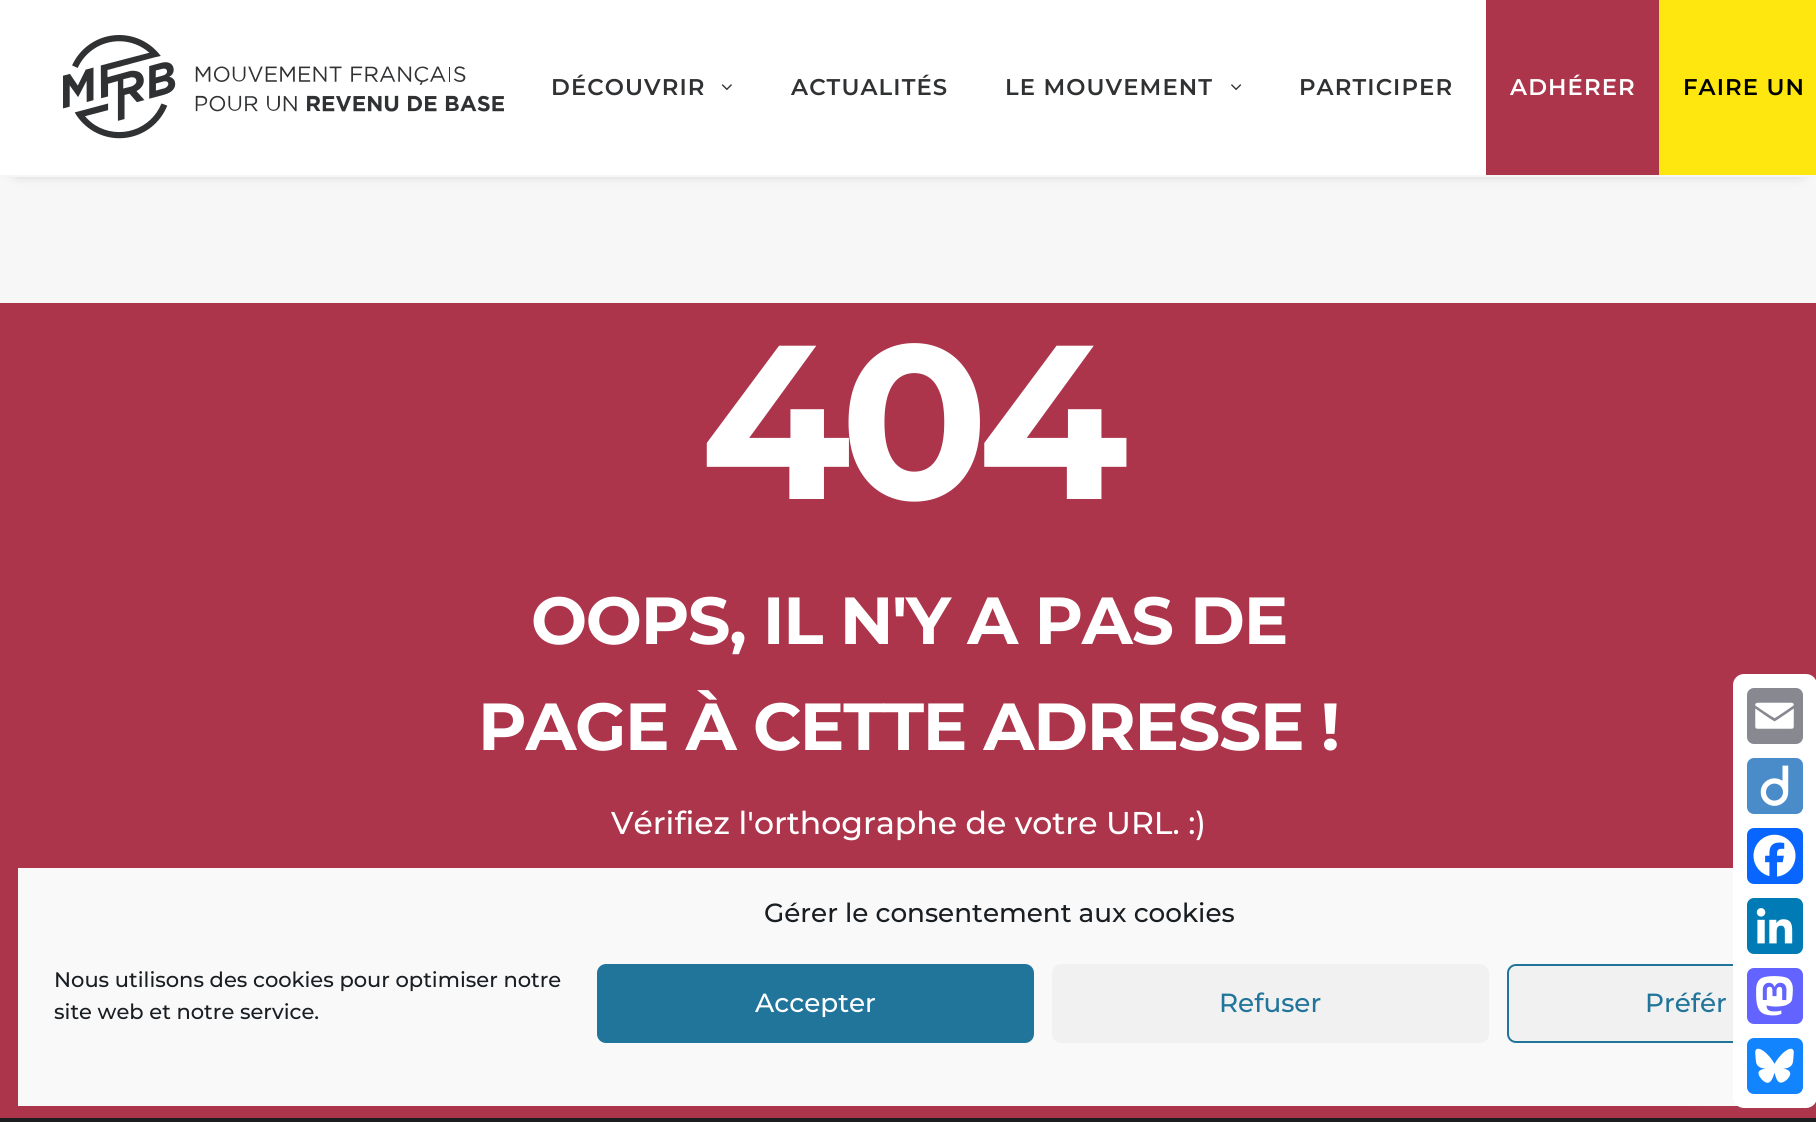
#include <cairo.h>
#include <math.h>
#include <stddef.h>


static void set_color(cairo_t *cr, unsigned color) {
    cairo_set_source_rgb(cr, (color >> 16) / 255.0, (color >> 8 & 255) / 255.0, (color & 255) / 255.0);
}

static void draw_text(cairo_t *cr, double x, double y, const char *s, const char *family, double size, int italic, int bold, unsigned color) {
    cairo_select_font_face(cr, family, italic ? CAIRO_FONT_SLANT_ITALIC : CAIRO_FONT_SLANT_NORMAL,
        bold ? CAIRO_FONT_WEIGHT_BOLD : CAIRO_FONT_WEIGHT_NORMAL);
    cairo_set_font_size(cr, size);
    set_color(cr, color);
    cairo_move_to(cr, x, y);
    cairo_show_text(cr, s);
}

static void draw_spaced(cairo_t *cr, double x, double y, const char *s, double letter, double word) {
    cairo_move_to(cr, x, y);
    while (*s) {
        char ch[5] = {0};
        int n = 0;
        do ch[n++] = *s++; while ((*s & 0xC0) == 0x80);
        cairo_show_text(cr, ch);
        cairo_rel_move_to(cr, letter + word * (*ch == ' '), 0);
    }
}

static void fill_rect(cairo_t *cr, double x, double y, double w, double h, unsigned color) {
    set_color(cr, color);
    cairo_rectangle(cr, x, y, w, h);
    cairo_fill(cr);
}

static void rounded_rect(cairo_t *cr, double x, double y, double w, double h, double r) {
    cairo_new_sub_path(cr);
    cairo_arc(cr, x + w - r, y + h - r, r, 0, M_PI / 2);
    cairo_arc(cr, x + r, y + h - r, r, M_PI / 2, M_PI);
    cairo_arc(cr, x + r, y + r, r, M_PI, 1.5 * M_PI);
    cairo_arc(cr, x + w - r, y + r, r, 1.5 * M_PI, 2 * M_PI);
    cairo_close_path(cr);
}

static void draw_shadow(cairo_t *cr, double x, double y, double w, double h, double r, double blur, double alpha) {
    cairo_push_group_with_content(cr, CAIRO_CONTENT_ALPHA);
    cairo_set_operator(cr, CAIRO_OPERATOR_SOURCE);
    for (int i = 15; i >= -15 && fmin(w, h) + blur * i / 3 > 0; i -= 2) {
        double e = blur * i / 6;
        cairo_set_source_rgba(cr, 0, 0, 0, alpha * erfc((i - 1) / 8.5) / 2);
        rounded_rect(cr, x - e, y - e, w + 2 * e, h + 2 * e, fmax(0, fmin(r + e + blur * .6, fmin(w, h) / 2 + e)));
        cairo_fill(cr);
    }
    cairo_pattern_t *soft = cairo_pop_group(cr);
    cairo_mask(cr, soft);
    cairo_pattern_destroy(soft);
}

static void draw_image(cairo_t *cr, const char *path, double x, double y, double w, double h) {
    cairo_surface_t *image = cairo_image_surface_create_from_png(path);
    cairo_save(cr);
    cairo_set_source_surface(cr, image, x, y);
    cairo_rectangle(cr, x, y, w, h);
    cairo_fill(cr);
    cairo_restore(cr);
    cairo_surface_destroy(image);
}

int main(void) {
    cairo_surface_t *surface = cairo_image_surface_create(CAIRO_FORMAT_RGB24, 1816, 1122);
    cairo_t *cr = cairo_create(surface);
    cairo_font_options_t *options = cairo_font_options_create();
    cairo_font_options_set_hint_metrics(options, CAIRO_HINT_METRICS_OFF);
    cairo_font_options_set_hint_style(options, CAIRO_HINT_STYLE_NONE);
    cairo_set_font_options(cr, options);
    cairo_set_miter_limit(cr, 4);
    set_color(cr, 0xF7F7F7);
    cairo_paint(cr);
    set_color(cr, 0x000000);
    draw_shadow(cr, 18, 25, 1781, 141, 0, 9, 0.6);
    fill_rect(cr, 0, 0, 1486, 175, 0xFFFFFF);
    fill_rect(cr, 9, 175, 1807, 2, 0xF6F6F6);
    draw_image(cr, "assets/img1.png", 63, 35, 441, 104);
    cairo_select_font_face(cr, "Montserrat SemiBold", CAIRO_FONT_SLANT_NORMAL, CAIRO_FONT_WEIGHT_NORMAL);
    cairo_set_font_size(cr, 22.75);
    set_color(cr, 0x303133);
    draw_spaced(cr, 551, 95, "DÉCOUVRIR", 1.1, 0);
    draw_image(cr, "assets/img2.png", 721, 84, 11, 7);
    draw_spaced(cr, 791, 95, "ACTUALITÉS", 1.1, 0);
    draw_spaced(cr, 1005, 95, "LE MOUVEMENT", 1.1, 0);
    draw_image(cr, "assets/img3.png", 1231, 84, 11, 7);
    draw_spaced(cr, 1299, 95, "PARTICIPER", 1.1, 0);
    fill_rect(cr, 1486, 0, 173, 175, 0xAC354C);
    set_color(cr, 0xFFFFFF);
    draw_spaced(cr, 1510, 95, "ADHÉRER", 1.1, 0);
    fill_rect(cr, 1659, 0, 157, 175, 0xFEE70E);
    set_color(cr, 0x000000);
    draw_spaced(cr, 1683, 95, "FAIRE UN", 1.1, 0);
    fill_rect(cr, 0, 303, 1816, 815, 0xAC354C);
    cairo_select_font_face(cr, "Montserrat", CAIRO_FONT_SLANT_NORMAL, CAIRO_FONT_WEIGHT_BOLD);
    cairo_set_font_size(cr, 219);
    set_color(cr, 0xFFFFFF);
    draw_spaced(cr, 700, 499, "404", -11, 0);
    cairo_set_font_size(cr, 66.5);
    draw_spaced(cr, 531, 644, "OOPS, IL N'Y A PAS DE", -1.3, 0);
    draw_spaced(cr, 478, 750, "PAGE À CETTE ADRESSE !", -1.3, 0);
    draw_text(cr, 611, 834, "Vérifiez l'orthographe de votre URL. :)", "Montserrat Medium", 31.5, 0, 0, 0xFFFFFF);
    fill_rect(cr, 0, 1118, 1816, 4, 0x1B1D1F);
    set_color(cr, 0x808080);
    draw_shadow(cr, 1694, 994, 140, 105, 4, 4.5, 1);
    fill_rect(cr, 18, 868, 1720, 238, 0xF9F9F9);
    draw_text(cr, 764, 922, "Gérer le consentement aux cookies", "Montserrat Medium", 26.25, 0, 0, 0x191E23);
    draw_text(cr, 54, 987, "Nous utilisons des cookies pour optimiser notre", "Montserrat Medium", 21, 0, 0, 0x191E23);
    draw_text(cr, 54, 1019, "site web et notre service.", "Montserrat Medium", 21, 0, 0, 0x191E23);
    set_color(cr, 0x21759B);
    rounded_rect(cr, 598, 965, 435, 77, 8);
    cairo_fill_preserve(cr);
    cairo_stroke(cr);
    draw_text(cr, 755, 1012, "Accepter", "Montserrat Medium", 26.25, 0, 0, 0xFFFFFF);
    set_color(cr, 0xF1F1F1);
    rounded_rect(cr, 1052, 964, 437, 79, 9);
    cairo_fill(cr);
    draw_text(cr, 1219, 1012, "Refuser", "Montserrat Medium", 26.25, 0, 0, 0x21759B);
    set_color(cr, 0xF1F1F1);
    rounded_rect(cr, 1508, 965, 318, 77, 8);
    cairo_fill_preserve(cr);
    set_color(cr, 0x21759B);
    cairo_stroke(cr);
    draw_text(cr, 1645, 1012, "Préfér", "Montserrat Medium", 26.25, 0, 0, 0x21759B);
    set_color(cr, 0xFFFFFF);
    rounded_rect(cr, 1733, 674, 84, 434, 11);
    cairo_fill(cr);
    set_color(cr, 0x888990);
    rounded_rect(cr, 1747, 688, 56, 56, 7);
    cairo_fill(cr);
    draw_image(cr, "assets/img4.png", 1755, 702, 39, 27);
    set_color(cr, 0x4A8BCA);
    rounded_rect(cr, 1747, 758, 56, 56, 7);
    cairo_fill(cr);
    draw_image(cr, "assets/img5.png", 1760, 765, 29, 41);
    set_color(cr, 0x0866FF);
    rounded_rect(cr, 1747, 828, 56, 56, 7);
    cairo_fill(cr);
    draw_image(cr, "assets/img6.png", 1753, 834, 43, 43);
    set_color(cr, 0x007BB5);
    rounded_rect(cr, 1747, 898, 56, 56, 7);
    cairo_fill(cr);
    draw_image(cr, "assets/img7.png", 1756, 908, 37, 36);
    set_color(cr, 0x6364FF);
    rounded_rect(cr, 1747, 968, 56, 56, 7);
    cairo_fill(cr);
    draw_image(cr, "assets/img8.png", 1756, 976, 37, 40);
    set_color(cr, 0x1285FE);
    rounded_rect(cr, 1747, 1038, 56, 56, 7);
    cairo_fill(cr);
    draw_image(cr, "assets/img9.png", 1755, 1048, 39, 35);
    cairo_surface_write_to_png(surface, "output.png");
    cairo_font_options_destroy(options);
    cairo_destroy(cr);
    cairo_surface_destroy(surface);
    return 0;
}
